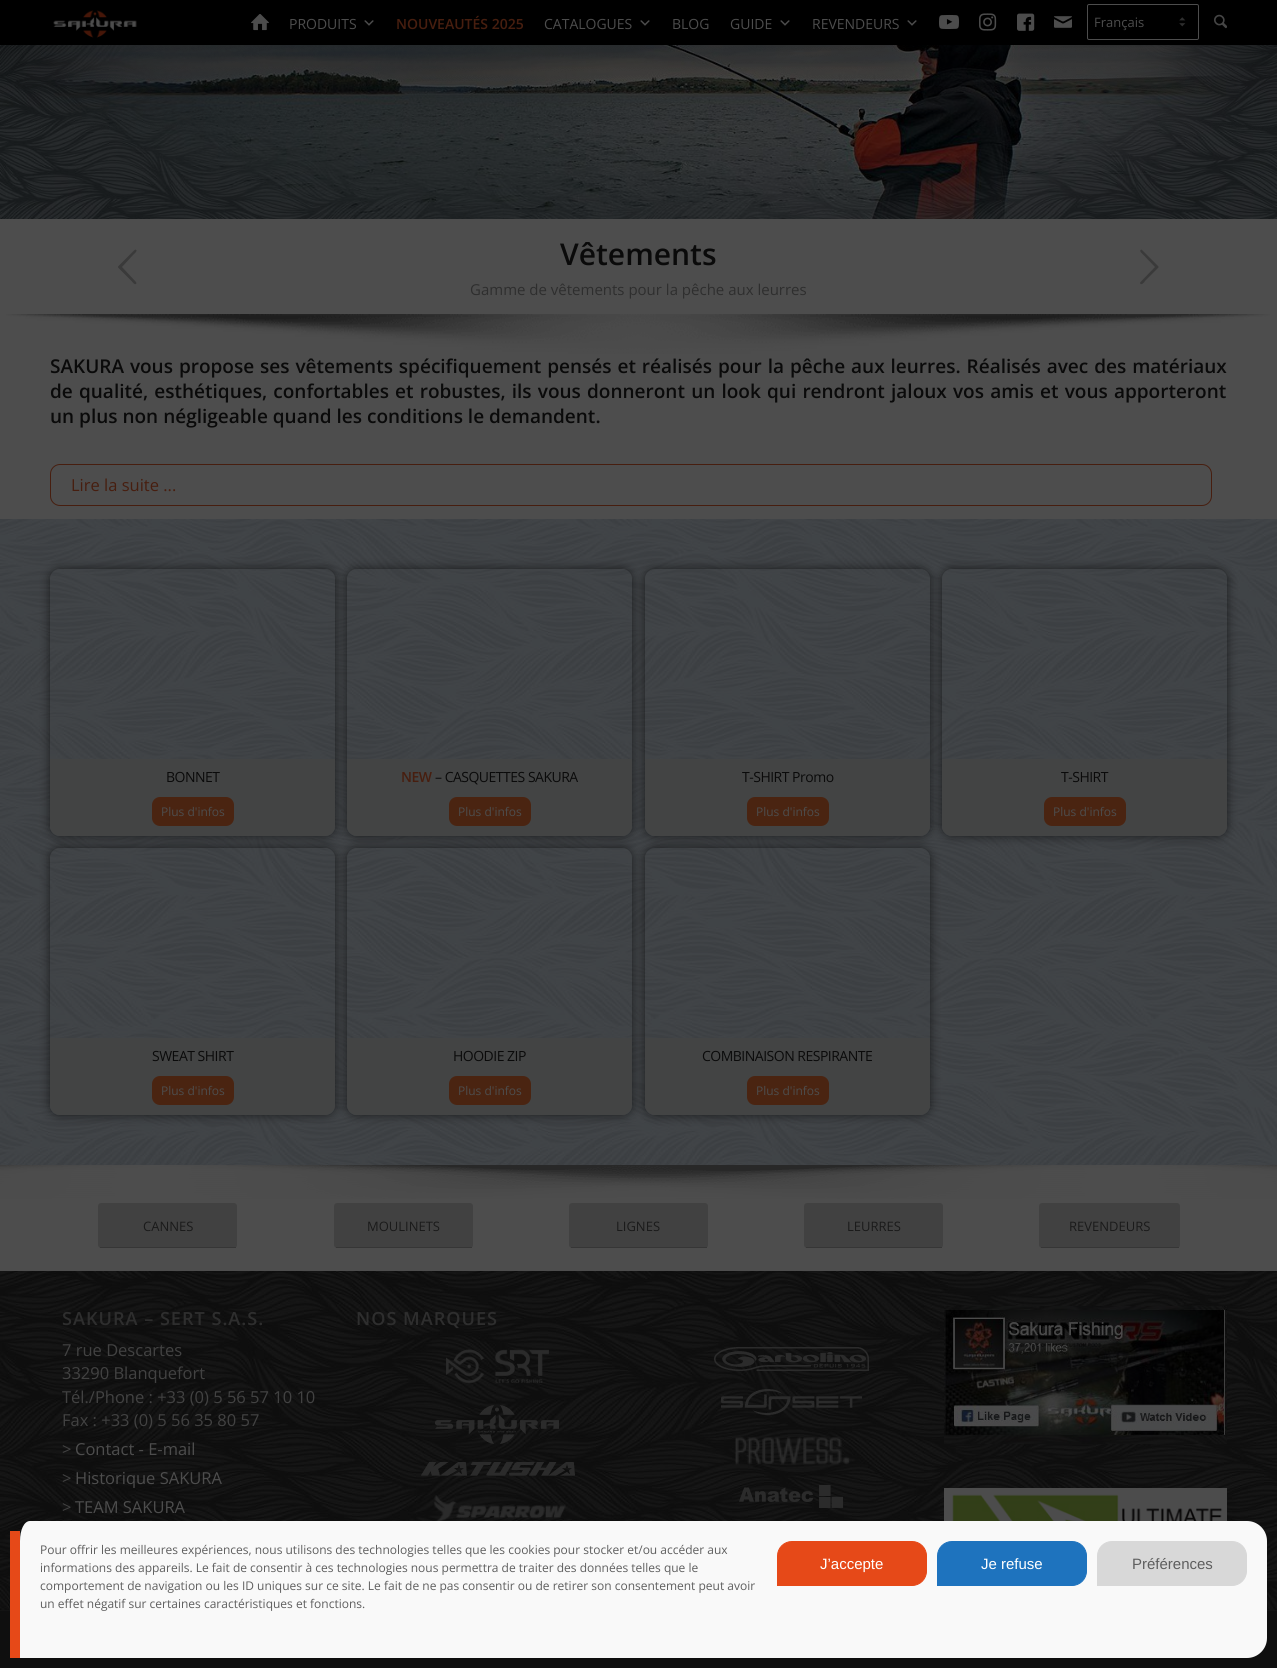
#include <cairo.h>
#include <math.h>
#include <stddef.h>


static void set_color(cairo_t *cr, unsigned color) {
    cairo_set_source_rgb(cr, (color >> 16) / 255.0, (color >> 8 & 255) / 255.0, (color & 255) / 255.0);
}

static void draw_text(cairo_t *cr, double x, double y, const char *s, const char *family, double size, int italic, int bold, unsigned color) {
    cairo_select_font_face(cr, family, italic ? CAIRO_FONT_SLANT_ITALIC : CAIRO_FONT_SLANT_NORMAL,
        bold ? CAIRO_FONT_WEIGHT_BOLD : CAIRO_FONT_WEIGHT_NORMAL);
    cairo_set_font_size(cr, size);
    set_color(cr, color);
    cairo_move_to(cr, x, y);
    cairo_show_text(cr, s);
}

static void draw_spaced(cairo_t *cr, double x, double y, const char *s, double letter, double word) {
    cairo_move_to(cr, x, y);
    while (*s) {
        char ch[5] = {0};
        int n = 0;
        do ch[n++] = *s++; while ((*s & 0xC0) == 0x80);
        cairo_show_text(cr, ch);
        cairo_rel_move_to(cr, letter + word * (*ch == ' '), 0);
    }
}

static void fill_rect(cairo_t *cr, double x, double y, double w, double h, unsigned color) {
    set_color(cr, color);
    cairo_rectangle(cr, x, y, w, h);
    cairo_fill(cr);
}

static void rounded_rect(cairo_t *cr, double x, double y, double w, double h, double r) {
    cairo_new_sub_path(cr);
    cairo_arc(cr, x + w - r, y + h - r, r, 0, M_PI / 2);
    cairo_arc(cr, x + r, y + h - r, r, M_PI / 2, M_PI);
    cairo_arc(cr, x + r, y + r, r, M_PI, 1.5 * M_PI);
    cairo_arc(cr, x + w - r, y + r, r, 1.5 * M_PI, 2 * M_PI);
    cairo_close_path(cr);
}

static void draw_shadow(cairo_t *cr, double x, double y, double w, double h, double r, double blur, double alpha) {
    cairo_push_group_with_content(cr, CAIRO_CONTENT_ALPHA);
    cairo_set_operator(cr, CAIRO_OPERATOR_SOURCE);
    for (int i = 15; i >= -15 && fmin(w, h) + blur * i / 3 > 0; i -= 2) {
        double e = blur * i / 6;
        cairo_set_source_rgba(cr, 0, 0, 0, alpha * erfc((i - 1) / 8.5) / 2);
        rounded_rect(cr, x - e, y - e, w + 2 * e, h + 2 * e, fmax(0, fmin(r + e + blur * .6, fmin(w, h) / 2 + e)));
        cairo_fill(cr);
    }
    cairo_pattern_t *soft = cairo_pop_group(cr);
    cairo_mask(cr, soft);
    cairo_pattern_destroy(soft);
}

static void draw_image(cairo_t *cr, const char *path, double x, double y, double w, double h) {
    cairo_surface_t *image = cairo_image_surface_create_from_png(path);
    cairo_save(cr);
    cairo_set_source_surface(cr, image, x, y);
    cairo_rectangle(cr, x, y, w, h);
    cairo_fill(cr);
    cairo_restore(cr);
    cairo_surface_destroy(image);
}

int main(void) {
    cairo_surface_t *surface = cairo_image_surface_create(CAIRO_FORMAT_RGB24, 1277, 1668);
    cairo_t *cr = cairo_create(surface);
    cairo_font_options_t *options = cairo_font_options_create();
    cairo_font_options_set_hint_metrics(options, CAIRO_HINT_METRICS_OFF);
    cairo_font_options_set_hint_style(options, CAIRO_HINT_STYLE_NONE);
    cairo_set_font_options(cr, options);
    cairo_set_miter_limit(cr, 4);
    set_color(cr, 0xFFFFFF);
    cairo_paint(cr);
    fill_rect(cr, 0, 0, 1277, 45, 0x000000);
    draw_image(cr, "assets/img1.png", 53, 10, 84, 28);
    draw_image(cr, "assets/img2.png", 251, 14, 18, 17);
    draw_text(cr, 289, 29, "PRODUITS", "Open Sans", 14, 0, 0, 0x4D4D4D);
    draw_image(cr, "assets/img3.png", 364, 20, 10, 6);
    draw_text(cr, 396, 29, "NOUVEAUTÉS 2025", "Open Sans SemiBold", 14, 0, 0, 0x471E0F);
    draw_text(cr, 544, 29, "CATALOGUES", "Open Sans", 14, 0, 0, 0x4D4D4D);
    draw_image(cr, "assets/img4.png", 640, 20, 10, 6);
    draw_text(cr, 672, 29, "BLOG", "Open Sans", 14, 0, 0, 0x4D4D4D);
    draw_text(cr, 730, 29, "GUIDE", "Open Sans", 14, 0, 0, 0x4D4D4D);
    draw_image(cr, "assets/img4.png", 780, 20, 10, 6);
    draw_text(cr, 812, 29, "REVENDEURS", "Open Sans", 14, 0, 0, 0x4D4D4D);
    draw_image(cr, "assets/img4.png", 907, 20, 10, 6);
    draw_image(cr, "assets/img5.png", 939, 14, 20, 15);
    draw_image(cr, "assets/img6.png", 979, 13, 18, 18);
    draw_image(cr, "assets/img7.png", 1017, 13, 18, 18);
    draw_image(cr, "assets/img8.png", 1054, 16, 18, 12);
    draw_image(cr, "assets/img9.png", 1179, 17, 7, 10);
    rounded_rect(cr, 1087.5, 4.5, 111, 35, 1.5);
    cairo_set_line_width(cr, 1);
    cairo_stroke(cr);
    draw_text(cr, 1094, 27, "Français", "Open Sans", 13, 0, 0, 0x4D4D4D);
    draw_image(cr, "assets/img10.png", 1214, 14, 13, 15);
    draw_image(cr, "assets/img11.png", 0, 45, 1277, 174);
    draw_image(cr, "assets/img12.png", 0, 45, 1277, 87);
    fill_rect(cr, 0, 219, 1277, 300, 0x4D4D4D);
    set_color(cr, 0x3A3A3A);
    cairo_new_path(cr);
    cairo_move_to(cr, 136, 282);
    cairo_line_to(cr, 136.5, 283);
    cairo_curve_to(cr, 135.5, 286.5, 132, 281.5, 131.5, 281);
    cairo_line_to(cr, 118, 267.5);
    cairo_line_to(cr, 118, 266.5);
    cairo_line_to(cr, 134.5, 250);
    cairo_line_to(cr, 135.5, 249.5);
    cairo_curve_to(cr, 138.5, 250.5, 134, 254, 133.5, 254.5);
    cairo_line_to(cr, 122, 267);
    cairo_close_path(cr);
    cairo_fill(cr);
    draw_text(cr, 560, 265, "Vêtements", "Open Sans SemiBold", 30, 0, 0, 0x0A0A0A);
    draw_text(cr, 470, 295, "Gamme de vêtements pour la pêche aux leurres", "Open Sans", 15, 0, 0, 0x2E2E2E);
    set_color(cr, 0x3A3A3A);
    cairo_new_path(cr);
    cairo_move_to(cr, 1140.5, 282);
    cairo_line_to(cr, 1155, 267);
    cairo_line_to(cr, 1143, 254.5);
    cairo_curve_to(cr, 1142.5, 254, 1138, 250.5, 1141.5, 249.5);
    cairo_line_to(cr, 1142, 250);
    cairo_line_to(cr, 1158.5, 266.5);
    cairo_line_to(cr, 1158.5, 267.5);
    cairo_line_to(cr, 1145, 281);
    cairo_curve_to(cr, 1145, 281.5, 1141, 286.5, 1140, 283);
    cairo_close_path(cr);
    cairo_fill(cr);
    draw_image(cr, "assets/img13.png", 6, 314, 1264, 40);
    cairo_select_font_face(cr, "Open Sans SemiBold", CAIRO_FONT_SLANT_NORMAL, CAIRO_FONT_WEIGHT_NORMAL);
    cairo_set_font_size(cr, 19);
    set_color(cr, 0x0A0A0A);
    draw_spaced(cr, 50, 373, "SAKURA vous propose ses vêtements spécifiquement pensés et réalisés pour la pêche aux leurres. Réalisés avec des matériaux", 0, 1);
    draw_spaced(cr, 50, 398, "de qualité, esthétiques, confortables et robustes, ils vous donneront un look qui rendront jaloux vos amis et vous apporteront", 0, 1.25);
    draw_text(cr, 50, 423, "un plus non négligeable quand les conditions le demandent.", "Open Sans SemiBold", 19, 0, 0, 0x0A0A0A);
    rounded_rect(cr, 50.5, 464.5, 1161, 41, 9.5);
    set_color(cr, 0x471E0F);
    cairo_stroke(cr);
    draw_text(cr, 71, 491, "Lire la suite ...", "Open Sans", 16.5, 0, 0, 0x471E0F);
    draw_image(cr, "assets/img14.png", 0, 519, 1277, 646);
    cairo_save(cr);
    cairo_set_fill_rule(cr, CAIRO_FILL_RULE_EVEN_ODD);
    cairo_new_path(cr);
    cairo_move_to(cr, 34, 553);
    cairo_line_to(cr, 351, 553);
    cairo_line_to(cr, 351, 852);
    cairo_line_to(cr, 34, 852);
    cairo_close_path(cr);
    cairo_move_to(cr, 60, 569);
    cairo_line_to(cr, 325, 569);
    cairo_curve_to(cr, 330.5, 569, 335, 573.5, 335, 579);
    cairo_line_to(cr, 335, 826);
    cairo_curve_to(cr, 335, 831.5, 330.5, 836, 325, 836);
    cairo_line_to(cr, 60, 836);
    cairo_curve_to(cr, 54.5, 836, 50, 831.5, 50, 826);
    cairo_line_to(cr, 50, 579);
    cairo_curve_to(cr, 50, 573.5, 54.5, 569, 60, 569);
    cairo_close_path(cr);
    cairo_clip(cr);
    set_color(cr, 0x000000);
    draw_shadow(cr, 50, 569, 285, 267, 10, 5, 0.6);
    cairo_restore(cr);
    set_color(cr, 0x434444);
    cairo_new_path(cr);
    cairo_move_to(cr, 50, 759);
    cairo_line_to(cr, 335, 759);
    cairo_line_to(cr, 335, 826);
    cairo_curve_to(cr, 335, 831.5, 330.5, 836, 325, 836);
    cairo_line_to(cr, 60, 836);
    cairo_curve_to(cr, 54.5, 836, 50, 831.5, 50, 826);
    cairo_close_path(cr);
    cairo_fill(cr);
    cairo_set_font_size(cr, 14);
    set_color(cr, 0x0A0A0A);
    draw_spaced(cr, 166, 782, "BONNET", -0.5, 0);
    set_color(cr, 0x4A2411);
    rounded_rect(cr, 152, 797, 82, 29, 8);
    cairo_fill(cr);
    draw_text(cr, 161, 816, "Plus d'infos", "Open Sans", 12, 0, 0, 0x4D4D4D);
    cairo_save(cr);
    cairo_set_fill_rule(cr, CAIRO_FILL_RULE_EVEN_ODD);
    cairo_new_path(cr);
    cairo_move_to(cr, 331, 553);
    cairo_line_to(cr, 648, 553);
    cairo_line_to(cr, 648, 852);
    cairo_line_to(cr, 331, 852);
    cairo_close_path(cr);
    cairo_move_to(cr, 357, 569);
    cairo_line_to(cr, 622, 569);
    cairo_curve_to(cr, 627.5, 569, 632, 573.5, 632, 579);
    cairo_line_to(cr, 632, 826);
    cairo_curve_to(cr, 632, 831.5, 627.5, 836, 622, 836);
    cairo_line_to(cr, 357, 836);
    cairo_curve_to(cr, 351.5, 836, 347, 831.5, 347, 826);
    cairo_line_to(cr, 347, 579);
    cairo_curve_to(cr, 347, 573.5, 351.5, 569, 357, 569);
    cairo_close_path(cr);
    cairo_clip(cr);
    set_color(cr, 0x000000);
    draw_shadow(cr, 347, 569, 285, 267, 10, 5, 0.6);
    cairo_restore(cr);
    set_color(cr, 0x434444);
    cairo_new_path(cr);
    cairo_move_to(cr, 347, 759);
    cairo_line_to(cr, 632, 759);
    cairo_line_to(cr, 632, 826);
    cairo_curve_to(cr, 632, 831.5, 627.5, 836, 622, 836);
    cairo_line_to(cr, 357, 836);
    cairo_curve_to(cr, 351.5, 836, 347, 831.5, 347, 826);
    cairo_close_path(cr);
    cairo_fill(cr);
    cairo_select_font_face(cr, "Open Sans SemiBold", CAIRO_FONT_SLANT_NORMAL, CAIRO_FONT_WEIGHT_NORMAL);
    cairo_set_font_size(cr, 14);
    set_color(cr, 0x471E0F);
    draw_spaced(cr, 401, 782, "NEW", -0.5, 0);
    cairo_select_font_face(cr, "Open Sans", CAIRO_FONT_SLANT_NORMAL, CAIRO_FONT_WEIGHT_NORMAL);
    set_color(cr, 0x0A0A0A);
    draw_spaced(cr, 435, 782, "– CASQUETTES SAKURA", -0.5, 0);
    set_color(cr, 0x4A2411);
    rounded_rect(cr, 449, 797, 82, 29, 8);
    cairo_fill(cr);
    draw_text(cr, 458, 816, "Plus d'infos", "Open Sans", 12, 0, 0, 0x4D4D4D);
    cairo_save(cr);
    cairo_set_fill_rule(cr, CAIRO_FILL_RULE_EVEN_ODD);
    cairo_new_path(cr);
    cairo_move_to(cr, 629, 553);
    cairo_line_to(cr, 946, 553);
    cairo_line_to(cr, 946, 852);
    cairo_line_to(cr, 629, 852);
    cairo_close_path(cr);
    cairo_move_to(cr, 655, 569);
    cairo_line_to(cr, 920, 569);
    cairo_curve_to(cr, 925.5, 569, 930, 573.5, 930, 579);
    cairo_line_to(cr, 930, 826);
    cairo_curve_to(cr, 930, 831.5, 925.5, 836, 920, 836);
    cairo_line_to(cr, 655, 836);
    cairo_curve_to(cr, 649.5, 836, 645, 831.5, 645, 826);
    cairo_line_to(cr, 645, 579);
    cairo_curve_to(cr, 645, 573.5, 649.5, 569, 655, 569);
    cairo_close_path(cr);
    cairo_clip(cr);
    set_color(cr, 0x000000);
    draw_shadow(cr, 645, 569, 285, 267, 10, 5, 0.6);
    cairo_restore(cr);
    set_color(cr, 0x434444);
    cairo_new_path(cr);
    cairo_move_to(cr, 645, 759);
    cairo_line_to(cr, 930, 759);
    cairo_line_to(cr, 930, 826);
    cairo_curve_to(cr, 930, 831.5, 925.5, 836, 920, 836);
    cairo_line_to(cr, 655, 836);
    cairo_curve_to(cr, 649.5, 836, 645, 831.5, 645, 826);
    cairo_close_path(cr);
    cairo_fill(cr);
    cairo_set_font_size(cr, 14);
    set_color(cr, 0x0A0A0A);
    draw_spaced(cr, 742, 782, "T-SHIRT Promo", -0.5, 0);
    set_color(cr, 0x4A2411);
    rounded_rect(cr, 747, 797, 82, 29, 8);
    cairo_fill(cr);
    draw_text(cr, 756, 816, "Plus d'infos", "Open Sans", 12, 0, 0, 0x4D4D4D);
    cairo_save(cr);
    cairo_set_fill_rule(cr, CAIRO_FILL_RULE_EVEN_ODD);
    cairo_new_path(cr);
    cairo_move_to(cr, 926, 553);
    cairo_line_to(cr, 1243, 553);
    cairo_line_to(cr, 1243, 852);
    cairo_line_to(cr, 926, 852);
    cairo_close_path(cr);
    cairo_move_to(cr, 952, 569);
    cairo_line_to(cr, 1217, 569);
    cairo_curve_to(cr, 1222.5, 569, 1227, 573.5, 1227, 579);
    cairo_line_to(cr, 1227, 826);
    cairo_curve_to(cr, 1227, 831.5, 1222.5, 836, 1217, 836);
    cairo_line_to(cr, 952, 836);
    cairo_curve_to(cr, 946.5, 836, 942, 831.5, 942, 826);
    cairo_line_to(cr, 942, 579);
    cairo_curve_to(cr, 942, 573.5, 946.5, 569, 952, 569);
    cairo_close_path(cr);
    cairo_clip(cr);
    set_color(cr, 0x000000);
    draw_shadow(cr, 942, 569, 285, 267, 10, 5, 0.6);
    cairo_restore(cr);
    set_color(cr, 0x434444);
    cairo_new_path(cr);
    cairo_move_to(cr, 942, 759);
    cairo_line_to(cr, 1227, 759);
    cairo_line_to(cr, 1227, 826);
    cairo_curve_to(cr, 1227, 831.5, 1222.5, 836, 1217, 836);
    cairo_line_to(cr, 952, 836);
    cairo_curve_to(cr, 946.5, 836, 942, 831.5, 942, 826);
    cairo_close_path(cr);
    cairo_fill(cr);
    cairo_set_font_size(cr, 14);
    set_color(cr, 0x0A0A0A);
    draw_spaced(cr, 1061, 782, "T-SHIRT", -0.5, 0);
    set_color(cr, 0x4A2411);
    rounded_rect(cr, 1044, 797, 82, 29, 8);
    cairo_fill(cr);
    draw_text(cr, 1053, 816, "Plus d'infos", "Open Sans", 12, 0, 0, 0x4D4D4D);
    cairo_save(cr);
    cairo_set_fill_rule(cr, CAIRO_FILL_RULE_EVEN_ODD);
    cairo_new_path(cr);
    cairo_move_to(cr, 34, 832);
    cairo_line_to(cr, 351, 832);
    cairo_line_to(cr, 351, 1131);
    cairo_line_to(cr, 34, 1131);
    cairo_close_path(cr);
    cairo_move_to(cr, 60, 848);
    cairo_line_to(cr, 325, 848);
    cairo_curve_to(cr, 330.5, 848, 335, 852.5, 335, 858);
    cairo_line_to(cr, 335, 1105);
    cairo_curve_to(cr, 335, 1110.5, 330.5, 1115, 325, 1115);
    cairo_line_to(cr, 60, 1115);
    cairo_curve_to(cr, 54.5, 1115, 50, 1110.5, 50, 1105);
    cairo_line_to(cr, 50, 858);
    cairo_curve_to(cr, 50, 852.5, 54.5, 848, 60, 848);
    cairo_close_path(cr);
    cairo_clip(cr);
    set_color(cr, 0x000000);
    draw_shadow(cr, 50, 848, 285, 267, 10, 5, 0.6);
    cairo_restore(cr);
    set_color(cr, 0x434444);
    cairo_new_path(cr);
    cairo_move_to(cr, 50, 1038);
    cairo_line_to(cr, 335, 1038);
    cairo_line_to(cr, 335, 1105);
    cairo_curve_to(cr, 335, 1110.5, 330.5, 1115, 325, 1115);
    cairo_line_to(cr, 60, 1115);
    cairo_curve_to(cr, 54.5, 1115, 50, 1110.5, 50, 1105);
    cairo_close_path(cr);
    cairo_fill(cr);
    cairo_set_font_size(cr, 14);
    set_color(cr, 0x0A0A0A);
    draw_spaced(cr, 152, 1061, "SWEAT SHIRT", -0.5, 0);
    set_color(cr, 0x4A2411);
    rounded_rect(cr, 152, 1076, 82, 29, 8);
    cairo_fill(cr);
    draw_text(cr, 161, 1095, "Plus d'infos", "Open Sans", 12, 0, 0, 0x4D4D4D);
    cairo_save(cr);
    cairo_set_fill_rule(cr, CAIRO_FILL_RULE_EVEN_ODD);
    cairo_new_path(cr);
    cairo_move_to(cr, 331, 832);
    cairo_line_to(cr, 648, 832);
    cairo_line_to(cr, 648, 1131);
    cairo_line_to(cr, 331, 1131);
    cairo_close_path(cr);
    cairo_move_to(cr, 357, 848);
    cairo_line_to(cr, 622, 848);
    cairo_curve_to(cr, 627.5, 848, 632, 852.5, 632, 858);
    cairo_line_to(cr, 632, 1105);
    cairo_curve_to(cr, 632, 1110.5, 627.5, 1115, 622, 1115);
    cairo_line_to(cr, 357, 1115);
    cairo_curve_to(cr, 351.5, 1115, 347, 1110.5, 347, 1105);
    cairo_line_to(cr, 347, 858);
    cairo_curve_to(cr, 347, 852.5, 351.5, 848, 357, 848);
    cairo_close_path(cr);
    cairo_clip(cr);
    set_color(cr, 0x000000);
    draw_shadow(cr, 347, 848, 285, 267, 10, 5, 0.6);
    cairo_restore(cr);
    set_color(cr, 0x434444);
    cairo_new_path(cr);
    cairo_move_to(cr, 347, 1038);
    cairo_line_to(cr, 632, 1038);
    cairo_line_to(cr, 632, 1105);
    cairo_curve_to(cr, 632, 1110.5, 627.5, 1115, 622, 1115);
    cairo_line_to(cr, 357, 1115);
    cairo_curve_to(cr, 351.5, 1115, 347, 1110.5, 347, 1105);
    cairo_close_path(cr);
    cairo_fill(cr);
    cairo_set_font_size(cr, 14);
    set_color(cr, 0x0A0A0A);
    draw_spaced(cr, 453, 1061, "HOODIE ZIP", -0.5, 0);
    set_color(cr, 0x4A2411);
    rounded_rect(cr, 449, 1076, 82, 29, 8);
    cairo_fill(cr);
    draw_text(cr, 458, 1095, "Plus d'infos", "Open Sans", 12, 0, 0, 0x4D4D4D);
    cairo_save(cr);
    cairo_set_fill_rule(cr, CAIRO_FILL_RULE_EVEN_ODD);
    cairo_new_path(cr);
    cairo_move_to(cr, 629, 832);
    cairo_line_to(cr, 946, 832);
    cairo_line_to(cr, 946, 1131);
    cairo_line_to(cr, 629, 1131);
    cairo_close_path(cr);
    cairo_move_to(cr, 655, 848);
    cairo_line_to(cr, 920, 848);
    cairo_curve_to(cr, 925.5, 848, 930, 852.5, 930, 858);
    cairo_line_to(cr, 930, 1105);
    cairo_curve_to(cr, 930, 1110.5, 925.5, 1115, 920, 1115);
    cairo_line_to(cr, 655, 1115);
    cairo_curve_to(cr, 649.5, 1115, 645, 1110.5, 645, 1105);
    cairo_line_to(cr, 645, 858);
    cairo_curve_to(cr, 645, 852.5, 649.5, 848, 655, 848);
    cairo_close_path(cr);
    cairo_clip(cr);
    set_color(cr, 0x000000);
    draw_shadow(cr, 645, 848, 285, 267, 10, 5, 0.6);
    cairo_restore(cr);
    set_color(cr, 0x434444);
    cairo_new_path(cr);
    cairo_move_to(cr, 645, 1038);
    cairo_line_to(cr, 930, 1038);
    cairo_line_to(cr, 930, 1105);
    cairo_curve_to(cr, 930, 1110.5, 925.5, 1115, 920, 1115);
    cairo_line_to(cr, 655, 1115);
    cairo_curve_to(cr, 649.5, 1115, 645, 1110.5, 645, 1105);
    cairo_close_path(cr);
    cairo_fill(cr);
    cairo_set_font_size(cr, 14);
    set_color(cr, 0x0A0A0A);
    draw_spaced(cr, 702, 1061, "COMBINAISON RESPIRANTE", -0.5, 0);
    set_color(cr, 0x4A2411);
    rounded_rect(cr, 747, 1076, 82, 29, 8);
    cairo_fill(cr);
    draw_text(cr, 756, 1095, "Plus d'infos", "Open Sans", 12, 0, 0, 0x4D4D4D);
    fill_rect(cr, 0, 1165, 1277, 106, 0x4D4D4D);
    draw_image(cr, "assets/img15.png", 0, 1165, 1277, 34);
    set_color(cr, 0x414141);
    rounded_rect(cr, 98, 1203, 139, 45, 3);
    cairo_fill(cr);
    fill_rect(cr, 100, 1247, 136, 1, 0x363636);
    draw_text(cr, 143, 1231, "CANNES", "Open Sans", 13, 0, 0, 0x1A1A1A);
    set_color(cr, 0x414141);
    rounded_rect(cr, 334, 1203, 139, 45, 3);
    cairo_fill(cr);
    fill_rect(cr, 336, 1247, 136, 1, 0x363636);
    draw_text(cr, 367, 1231, "MOULINETS", "Open Sans", 13, 0, 0, 0x1A1A1A);
    set_color(cr, 0x414141);
    rounded_rect(cr, 569, 1203, 139, 45, 3);
    cairo_fill(cr);
    fill_rect(cr, 571, 1247, 136, 1, 0x363636);
    draw_text(cr, 616, 1231, "LIGNES", "Open Sans", 13, 0, 0, 0x1A1A1A);
    set_color(cr, 0x414141);
    rounded_rect(cr, 804, 1203, 139, 45, 3);
    cairo_fill(cr);
    fill_rect(cr, 806, 1247, 136, 1, 0x363636);
    draw_text(cr, 847, 1231, "LEURRES", "Open Sans", 13, 0, 0, 0x1A1A1A);
    set_color(cr, 0x414141);
    rounded_rect(cr, 1039, 1203, 141, 45, 3);
    cairo_fill(cr);
    fill_rect(cr, 1041, 1247, 138, 1, 0x363636);
    draw_text(cr, 1069, 1231, "REVENDEURS", "Open Sans", 13, 0, 0, 0x1A1A1A);
    draw_image(cr, "assets/img16.png", 0, 1271, 1277, 339);
    cairo_select_font_face(cr, "Open Sans SemiBold", CAIRO_FONT_SLANT_NORMAL, CAIRO_FONT_WEIGHT_NORMAL);
    cairo_set_font_size(cr, 18.1);
    set_color(cr, 0x2E2E2E);
    draw_spaced(cr, 62, 1325, "SAKURA – SERT S.A.S.", 1, 0);
    draw_text(cr, 62, 1356, "7 rue Descartes", "Open Sans", 16.5, 0, 0, 0x424242);
    draw_text(cr, 62, 1379, "33290 Blanquefort", "Open Sans", 16.5, 0, 0, 0x424242);
    draw_text(cr, 62, 1403, "Tél./Phone : +33 (0) 5 56 57 10 10", "Open Sans", 16.5, 0, 0, 0x424242);
    draw_text(cr, 62, 1426, "Fax : +33 (0) 5 56 35 80 57", "Open Sans", 16.5, 0, 0, 0x424242);
    draw_text(cr, 62, 1455, ">", "Open Sans", 16.5, 0, 0, 0x424242);
    draw_text(cr, 75, 1455, "Contact - E-mail", "Open Sans", 16.5, 0, 0, 0x4D4D4D);
    draw_text(cr, 62, 1484, ">", "Open Sans", 16.5, 0, 0, 0x424242);
    draw_text(cr, 75, 1484, "Historique SAKURA", "Open Sans", 16.5, 0, 0, 0x4D4D4D);
    draw_text(cr, 62, 1513, ">", "Open Sans", 16.5, 0, 0, 0x424242);
    draw_text(cr, 75, 1513, "TEAM SAKURA", "Open Sans", 16.5, 0, 0, 0x4D4D4D);
    cairo_select_font_face(cr, "Open Sans SemiBold", CAIRO_FONT_SLANT_NORMAL, CAIRO_FONT_WEIGHT_NORMAL);
    cairo_set_font_size(cr, 18.1);
    set_color(cr, 0x2E2E2E);
    draw_spaced(cr, 356, 1325, "NOS MARQUES", 1, 0);
    draw_image(cr, "assets/img17.png", 446, 1349, 103, 34);
    draw_image(cr, "assets/img18.png", 435, 1405, 124, 39);
    draw_image(cr, "assets/img19.png", 421, 1462, 154, 14);
    draw_image(cr, "assets/img20.png", 434, 1495, 132, 26);
    draw_image(cr, "assets/img21.png", 944, 1306, 283, 138);
    draw_image(cr, "assets/img22.png", 944, 1488, 283, 33);
    draw_image(cr, "assets/img23.png", 714, 1347, 155, 24);
    draw_image(cr, "assets/img24.png", 721, 1389, 141, 26);
    draw_image(cr, "assets/img25.png", 735, 1437, 115, 28);
    draw_image(cr, "assets/img26.png", 739, 1485, 104, 23);
    fill_rect(cr, 0, 1611, 1277, 57, 0x0F0F0F);
    fill_rect(cr, 0, 1610, 1277, 1, 0x141414);
    set_color(cr, 0xF9F9F9);
    cairo_new_path(cr);
    cairo_move_to(cr, 30, 1521);
    cairo_line_to(cr, 1247, 1521);
    cairo_curve_to(cr, 1258, 1521, 1267, 1530, 1267, 1541);
    cairo_line_to(cr, 1267, 1638);
    cairo_curve_to(cr, 1267, 1649, 1258, 1658, 1247, 1658);
    cairo_line_to(cr, 20, 1658);
    cairo_line_to(cr, 20, 1541);
    cairo_curve_to(cr, 20, 1530, 24, 1521, 30, 1521);
    cairo_close_path(cr);
    cairo_fill(cr);
    fill_rect(cr, 10, 1531, 10, 127, 0xE64918);
    draw_text(cr, 40, 1554, "Pour offrir les meilleures expériences, nous utilisons des technologies telles que les cookies pour stocker et/ou accéder aux", "Open Sans", 12, 0, 0, 0x5E5E5E);
    draw_text(cr, 40, 1572, "informations des appareils. Le fait de consentir à ces technologies nous permettra de traiter des données telles que le", "Open Sans", 12, 0, 0, 0x5E5E5E);
    draw_text(cr, 40, 1590, "comportement de navigation ou les ID uniques sur ce site. Le fait de ne pas consentir ou de retirer son consentement peut avoir", "Open Sans", 12, 0, 0, 0x5E5E5E);
    draw_text(cr, 40, 1608, "un effet négatif sur certaines caractéristiques et fonctions.", "Open Sans", 12, 0, 0, 0x5E5E5E);
    set_color(cr, 0xE64918);
    cairo_new_path(cr);
    cairo_move_to(cr, 792, 1541.5);
    cairo_line_to(cr, 912, 1541.5);
    cairo_curve_to(cr, 920, 1541.5, 926.5, 1548, 926.5, 1556);
    cairo_line_to(cr, 926.5, 1571);
    cairo_curve_to(cr, 926.5, 1579, 920, 1585.5, 912, 1585.5);
    cairo_line_to(cr, 777.5, 1585.5);
    cairo_line_to(cr, 777.5, 1556);
    cairo_curve_to(cr, 777.5, 1548, 784, 1541.5, 792, 1541.5);
    cairo_close_path(cr);
    cairo_fill_preserve(cr);
    cairo_stroke(cr);
    draw_text(cr, 820, 1569, "J’accepte", "Liberation Sans", 15, 0, 0, 0xFFFFFF);
    set_color(cr, 0x1E73BE);
    cairo_new_path(cr);
    cairo_move_to(cr, 952, 1541.5);
    cairo_line_to(cr, 1072, 1541.5);
    cairo_curve_to(cr, 1080, 1541.5, 1086.5, 1548, 1086.5, 1556);
    cairo_line_to(cr, 1086.5, 1571);
    cairo_curve_to(cr, 1086.5, 1579, 1080, 1585.5, 1072, 1585.5);
    cairo_line_to(cr, 937.5, 1585.5);
    cairo_line_to(cr, 937.5, 1556);
    cairo_curve_to(cr, 937.5, 1548, 944, 1541.5, 952, 1541.5);
    cairo_close_path(cr);
    cairo_fill_preserve(cr);
    cairo_stroke(cr);
    draw_text(cr, 981, 1569, "Je refuse", "Liberation Sans", 15, 0, 0, 0xFFFFFF);
    set_color(cr, 0xD8D8D8);
    cairo_new_path(cr);
    cairo_move_to(cr, 1112, 1541.5);
    cairo_line_to(cr, 1232, 1541.5);
    cairo_curve_to(cr, 1240, 1541.5, 1246.5, 1548, 1246.5, 1556);
    cairo_line_to(cr, 1246.5, 1571);
    cairo_curve_to(cr, 1246.5, 1579, 1240, 1585.5, 1232, 1585.5);
    cairo_line_to(cr, 1097.5, 1585.5);
    cairo_line_to(cr, 1097.5, 1556);
    cairo_curve_to(cr, 1097.5, 1548, 1104, 1541.5, 1112, 1541.5);
    cairo_close_path(cr);
    cairo_fill_preserve(cr);
    cairo_stroke(cr);
    draw_text(cr, 1132, 1569, "Préférences", "Liberation Sans", 15, 0, 0, 0x5E5E5E);
    cairo_surface_write_to_png(surface, "output.png");
    cairo_font_options_destroy(options);
    cairo_destroy(cr);
    cairo_surface_destroy(surface);
    return 0;
}
